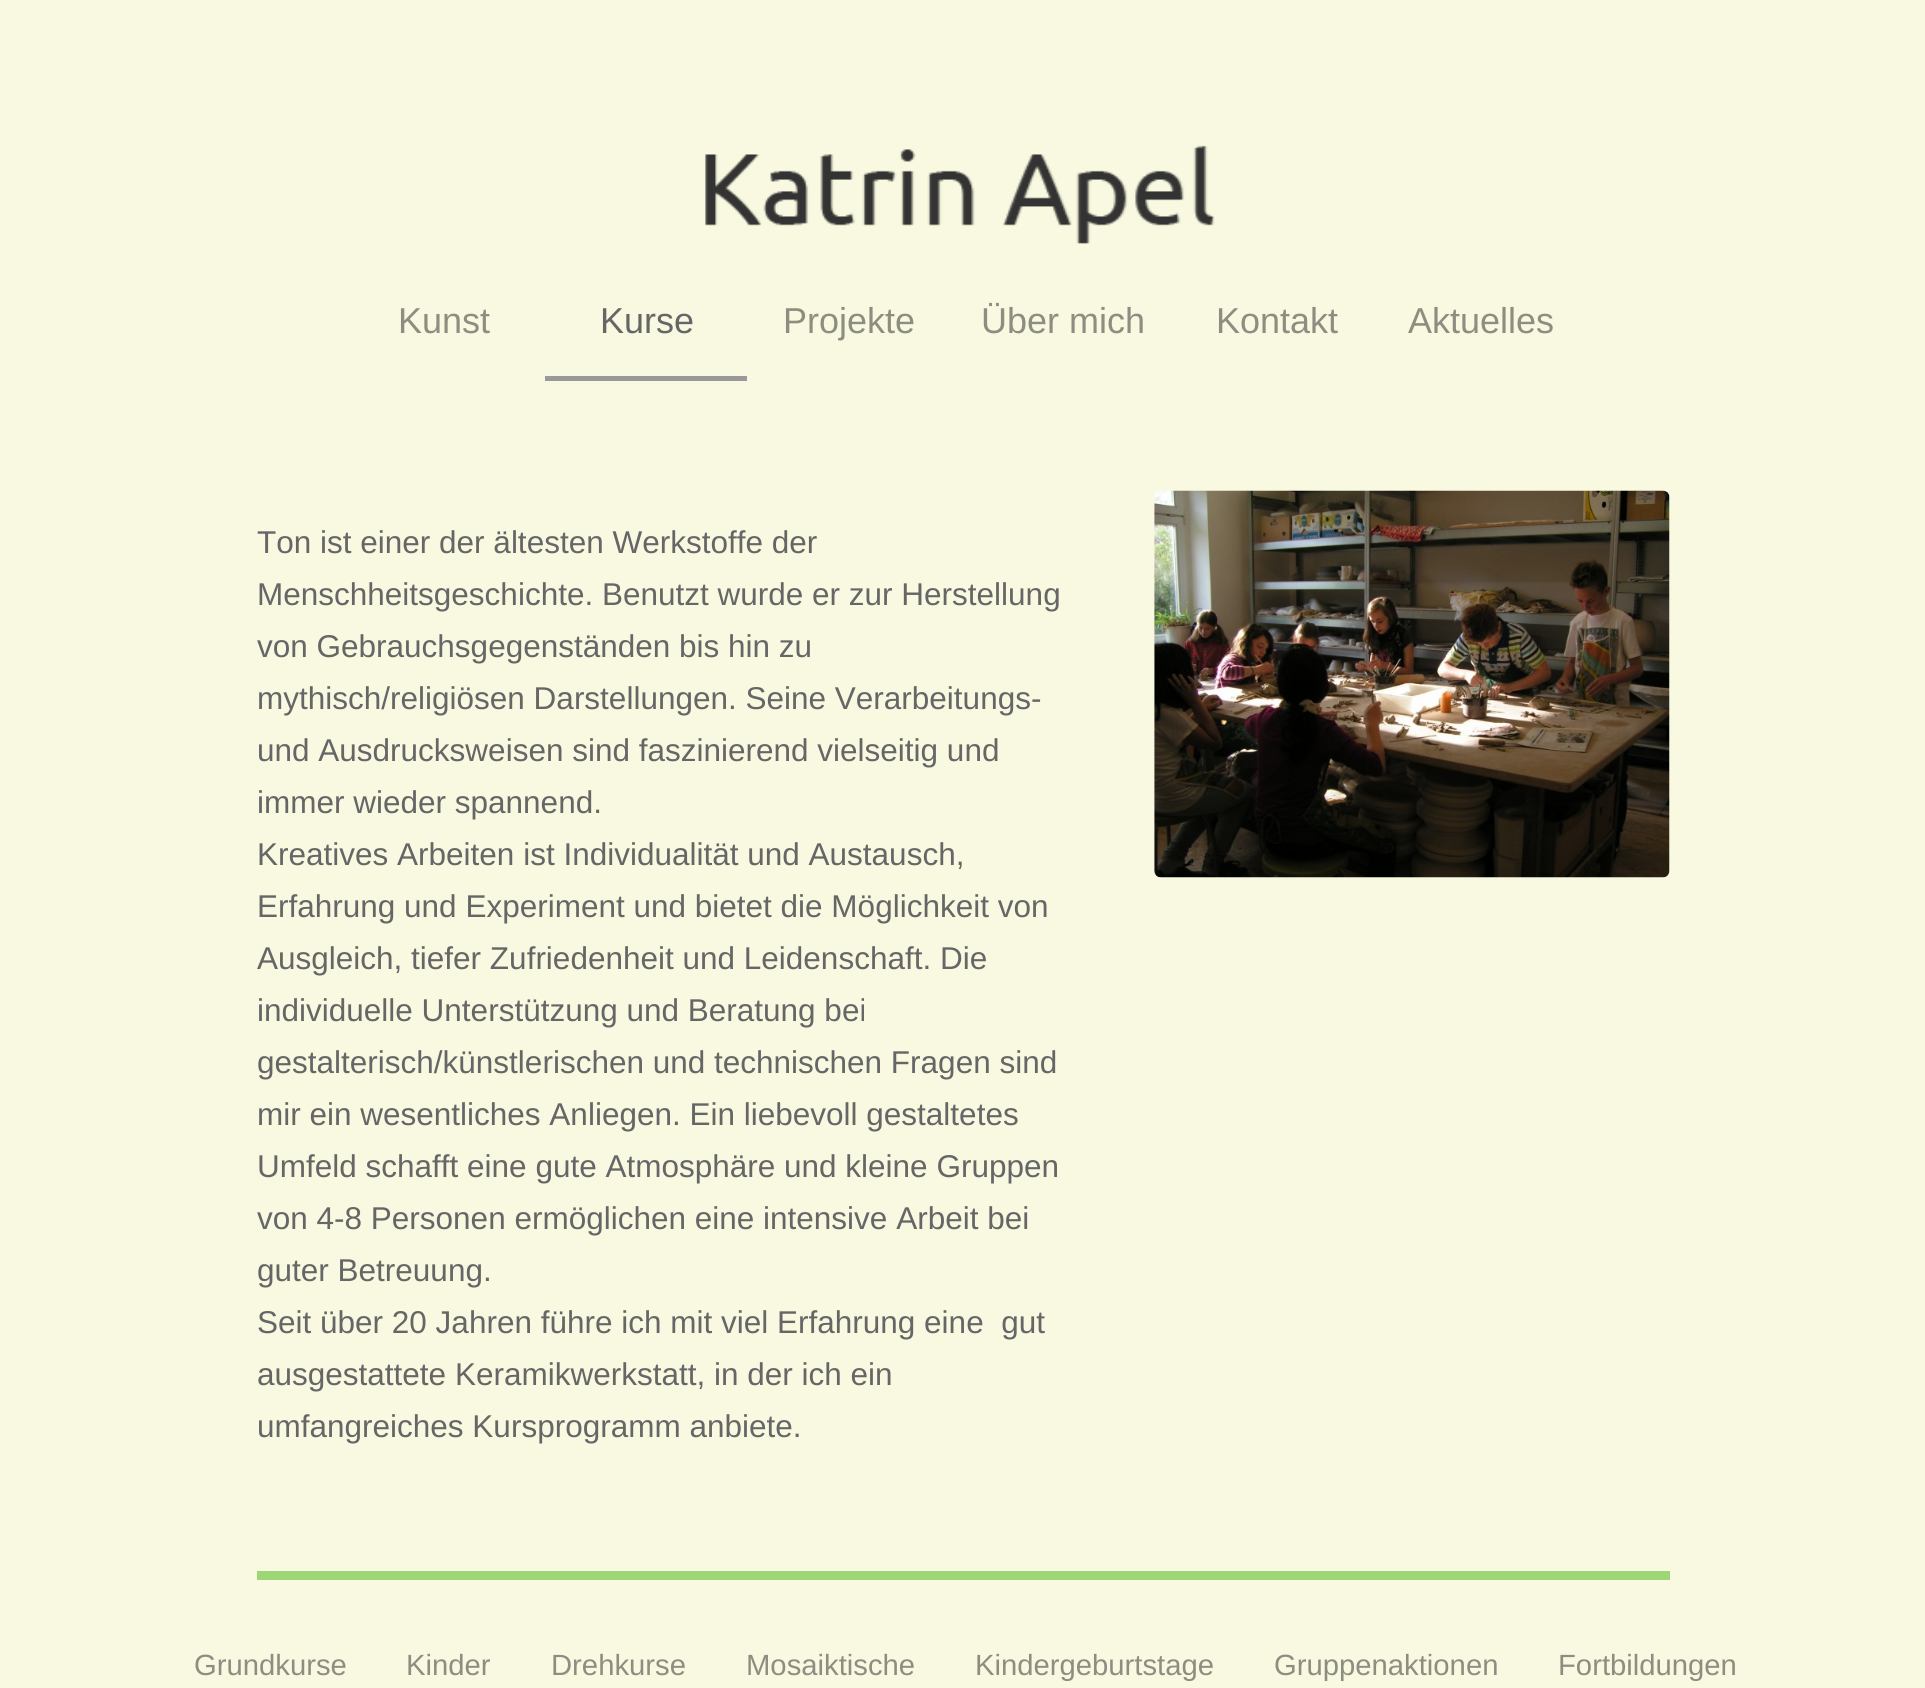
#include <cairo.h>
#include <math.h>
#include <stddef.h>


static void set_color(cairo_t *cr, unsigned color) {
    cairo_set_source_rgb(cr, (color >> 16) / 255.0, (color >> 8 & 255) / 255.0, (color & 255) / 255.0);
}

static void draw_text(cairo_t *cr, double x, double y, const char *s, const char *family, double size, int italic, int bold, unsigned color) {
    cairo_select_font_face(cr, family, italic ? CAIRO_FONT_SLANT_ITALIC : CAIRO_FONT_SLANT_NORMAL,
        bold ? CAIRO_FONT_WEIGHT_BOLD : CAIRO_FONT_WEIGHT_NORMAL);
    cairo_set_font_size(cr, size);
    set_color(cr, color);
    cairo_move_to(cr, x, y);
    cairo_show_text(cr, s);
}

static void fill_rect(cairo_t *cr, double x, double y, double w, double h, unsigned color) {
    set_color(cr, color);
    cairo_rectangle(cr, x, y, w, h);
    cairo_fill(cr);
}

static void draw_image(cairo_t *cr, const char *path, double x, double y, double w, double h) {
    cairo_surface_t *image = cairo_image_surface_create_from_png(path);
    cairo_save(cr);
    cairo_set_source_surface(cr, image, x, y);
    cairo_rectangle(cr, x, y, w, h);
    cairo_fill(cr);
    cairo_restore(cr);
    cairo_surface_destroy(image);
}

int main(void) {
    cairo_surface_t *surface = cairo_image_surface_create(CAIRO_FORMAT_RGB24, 1925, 1688);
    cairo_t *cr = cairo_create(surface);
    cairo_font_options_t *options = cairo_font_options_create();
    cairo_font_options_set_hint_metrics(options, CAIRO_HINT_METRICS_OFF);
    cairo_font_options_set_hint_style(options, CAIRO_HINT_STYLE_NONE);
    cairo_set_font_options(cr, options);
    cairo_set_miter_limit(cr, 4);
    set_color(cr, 0xF8F9E0);
    cairo_paint(cr);
    draw_image(cr, "assets/img1.png", 705, 145, 510, 99);
    draw_text(cr, 398, 333, "Kunst", "Liberation Sans", 36, 0, 0, 0x8D8E81);
    draw_text(cr, 600, 333, "Kurse", "Liberation Sans", 36, 0, 0, 0x666666);
    fill_rect(cr, 545, 376, 202, 5, 0x999999);
    draw_text(cr, 783, 333, "Projekte", "Liberation Sans", 36, 0, 0, 0x8D8E81);
    draw_text(cr, 981, 333, "Über mich", "Liberation Sans", 36, 0, 0, 0x8D8E81);
    draw_text(cr, 1216, 333, "Kontakt", "Liberation Sans", 36, 0, 0, 0x8D8E81);
    draw_text(cr, 1408, 333, "Aktuelles", "Liberation Sans", 36, 0, 0, 0x8D8E81);
    draw_text(cr, 257, 553, "Ton ist einer der ältesten Werkstoffe der", "Liberation Sans", 31.5, 0, 0, 0x666666);
    draw_text(cr, 257, 605, "Menschheitsgeschichte. Benutzt wurde er zur Herstellung", "Liberation Sans", 31.5, 0, 0, 0x666666);
    draw_text(cr, 257, 657, "von Gebrauchsgegenständen bis hin zu", "Liberation Sans", 31.5, 0, 0, 0x666666);
    draw_text(cr, 257, 709, "mythisch/religiösen Darstellungen. Seine Verarbeitungs-", "Liberation Sans", 31.5, 0, 0, 0x666666);
    draw_text(cr, 257, 761, "und Ausdrucksweisen sind faszinierend vielseitig und", "Liberation Sans", 31.5, 0, 0, 0x666666);
    draw_text(cr, 257, 813, "immer wieder spannend.", "Liberation Sans", 31.5, 0, 0, 0x666666);
    draw_text(cr, 257, 865, "Kreatives Arbeiten ist Individualität und Austausch,", "Liberation Sans", 31.5, 0, 0, 0x666666);
    draw_text(cr, 257, 917, "Erfahrung und Experiment und bietet die Möglichkeit von", "Liberation Sans", 31.5, 0, 0, 0x666666);
    draw_text(cr, 257, 969, "Ausgleich, tiefer Zufriedenheit und Leidenschaft. Die", "Liberation Sans", 31.5, 0, 0, 0x666666);
    draw_text(cr, 257, 1021, "individuelle Unterstützung und Beratung bei", "Liberation Sans", 31.5, 0, 0, 0x666666);
    draw_text(cr, 257, 1073, "gestalterisch/künstlerischen und technischen Fragen sind", "Liberation Sans", 31.5, 0, 0, 0x666666);
    draw_text(cr, 257, 1125, "mir ein wesentliches Anliegen. Ein liebevoll gestaltetes", "Liberation Sans", 31.5, 0, 0, 0x666666);
    draw_text(cr, 257, 1177, "Umfeld schafft eine gute Atmosphäre und kleine Gruppen", "Liberation Sans", 31.5, 0, 0, 0x666666);
    draw_text(cr, 257, 1229, "von 4-8 Personen ermöglichen eine intensive Arbeit bei", "Liberation Sans", 31.5, 0, 0, 0x666666);
    draw_text(cr, 257, 1281, "guter Betreuung.", "Liberation Sans", 31.5, 0, 0, 0x666666);
    draw_text(cr, 257, 1333, "Seit über 20 Jahren führe ich mit viel Erfahrung eine  gut", "Liberation Sans", 31.5, 0, 0, 0x666666);
    draw_text(cr, 257, 1385, "ausgestattete Keramikwerkstatt, in der ich ein", "Liberation Sans", 31.5, 0, 0, 0x666666);
    draw_text(cr, 257, 1437, "umfangreiches Kursprogramm anbiete.", "Liberation Sans", 31.5, 0, 0, 0x666666);
    draw_image(cr, "assets/img2.png", 1154, 490, 516, 388);
    fill_rect(cr, 257, 1571, 1413, 9, 0x9DD675);
    draw_text(cr, 194, 1675, "Grundkurse", "Liberation Sans", 29.25, 0, 0, 0x8D8E81);
    draw_text(cr, 406, 1675, "Kinder", "Liberation Sans", 29.25, 0, 0, 0x8D8E81);
    draw_text(cr, 551, 1675, "Drehkurse", "Liberation Sans", 29.25, 0, 0, 0x8D8E81);
    draw_text(cr, 746, 1675, "Mosaiktische", "Liberation Sans", 29.25, 0, 0, 0x8D8E81);
    draw_text(cr, 975, 1675, "Kindergeburtstage", "Liberation Sans", 29.25, 0, 0, 0x8D8E81);
    draw_text(cr, 1274, 1675, "Gruppenaktionen", "Liberation Sans", 29.25, 0, 0, 0x8D8E81);
    draw_text(cr, 1558, 1675, "Fortbildungen", "Liberation Sans", 29.25, 0, 0, 0x8D8E81);
    cairo_surface_write_to_png(surface, "output.png");
    cairo_font_options_destroy(options);
    cairo_destroy(cr);
    cairo_surface_destroy(surface);
    return 0;
}
